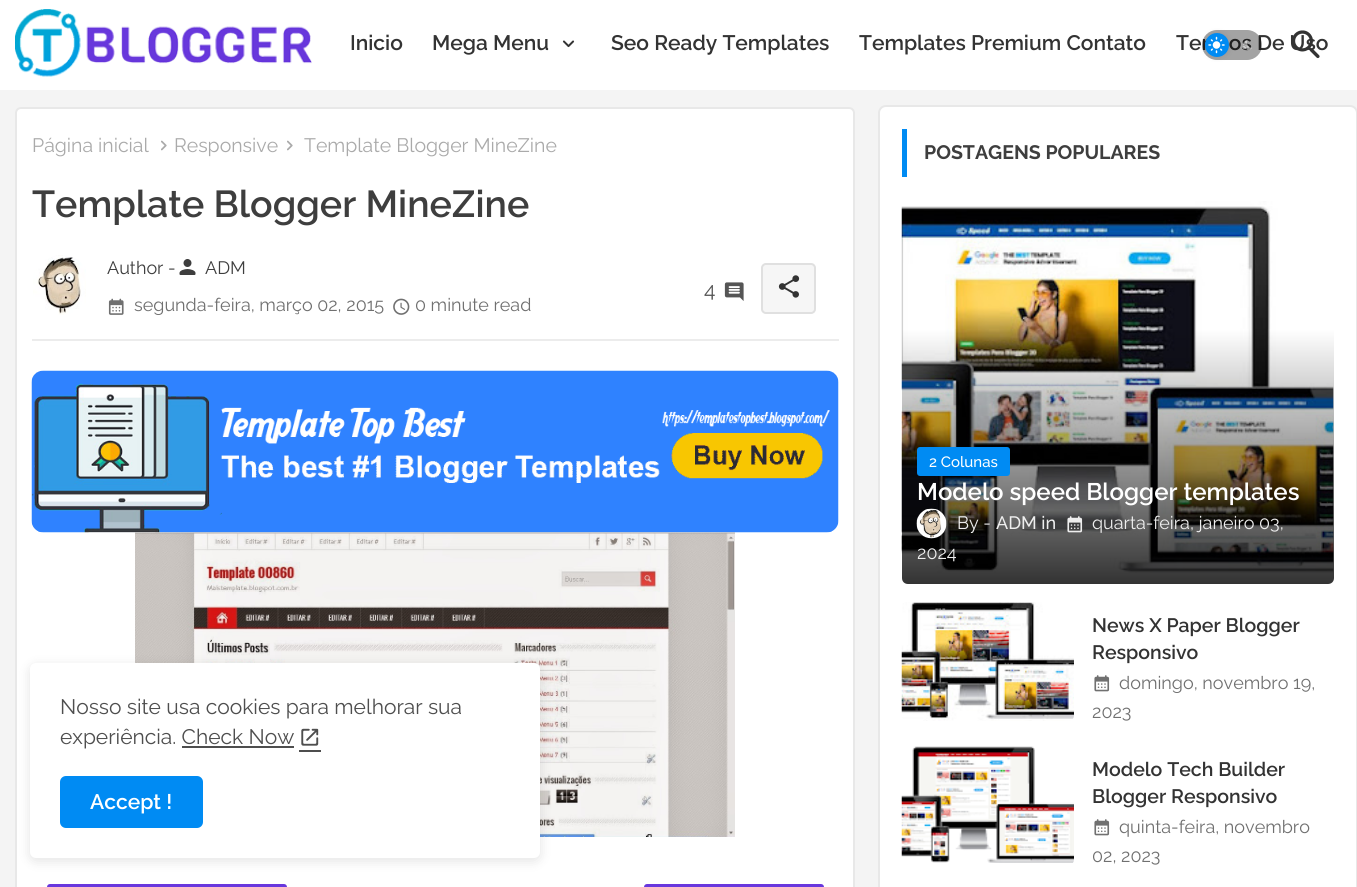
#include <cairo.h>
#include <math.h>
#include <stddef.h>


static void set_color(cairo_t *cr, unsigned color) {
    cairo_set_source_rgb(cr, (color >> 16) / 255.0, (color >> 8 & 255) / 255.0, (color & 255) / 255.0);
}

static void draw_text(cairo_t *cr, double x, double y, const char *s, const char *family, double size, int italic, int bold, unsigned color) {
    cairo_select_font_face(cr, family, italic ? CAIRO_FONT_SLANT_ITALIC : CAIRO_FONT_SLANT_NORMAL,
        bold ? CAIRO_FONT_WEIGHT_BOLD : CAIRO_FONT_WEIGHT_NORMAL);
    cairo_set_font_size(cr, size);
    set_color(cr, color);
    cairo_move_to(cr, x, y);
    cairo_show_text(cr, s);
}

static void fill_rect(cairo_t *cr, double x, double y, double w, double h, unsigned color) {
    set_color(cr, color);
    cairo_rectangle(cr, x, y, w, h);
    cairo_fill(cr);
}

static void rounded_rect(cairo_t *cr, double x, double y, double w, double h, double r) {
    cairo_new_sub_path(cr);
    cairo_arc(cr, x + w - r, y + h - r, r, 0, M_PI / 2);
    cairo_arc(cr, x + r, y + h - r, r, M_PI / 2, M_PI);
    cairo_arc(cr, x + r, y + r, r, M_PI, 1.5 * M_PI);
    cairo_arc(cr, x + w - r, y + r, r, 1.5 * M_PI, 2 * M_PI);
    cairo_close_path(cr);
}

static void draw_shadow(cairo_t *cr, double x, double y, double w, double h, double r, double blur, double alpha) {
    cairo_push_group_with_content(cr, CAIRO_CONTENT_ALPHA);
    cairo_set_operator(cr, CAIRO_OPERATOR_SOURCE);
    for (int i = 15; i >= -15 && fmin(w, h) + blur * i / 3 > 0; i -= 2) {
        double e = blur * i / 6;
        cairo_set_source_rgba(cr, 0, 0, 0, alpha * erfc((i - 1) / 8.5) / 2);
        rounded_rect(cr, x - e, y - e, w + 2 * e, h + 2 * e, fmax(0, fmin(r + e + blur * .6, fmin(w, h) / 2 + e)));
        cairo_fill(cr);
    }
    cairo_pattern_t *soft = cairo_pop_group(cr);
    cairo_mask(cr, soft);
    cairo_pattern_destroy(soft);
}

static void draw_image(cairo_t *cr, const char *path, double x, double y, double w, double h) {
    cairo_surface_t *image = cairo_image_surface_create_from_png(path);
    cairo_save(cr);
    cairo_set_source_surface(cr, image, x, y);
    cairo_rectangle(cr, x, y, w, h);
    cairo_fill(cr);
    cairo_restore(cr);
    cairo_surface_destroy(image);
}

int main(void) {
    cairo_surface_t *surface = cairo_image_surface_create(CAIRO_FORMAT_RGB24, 1357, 887);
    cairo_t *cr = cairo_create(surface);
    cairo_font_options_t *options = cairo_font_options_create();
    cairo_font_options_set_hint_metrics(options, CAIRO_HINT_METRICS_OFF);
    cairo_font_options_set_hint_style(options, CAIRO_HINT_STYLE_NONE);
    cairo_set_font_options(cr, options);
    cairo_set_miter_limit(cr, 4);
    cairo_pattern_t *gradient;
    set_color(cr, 0xF4F4F4);
    cairo_paint(cr);
    fill_rect(cr, 0, 0, 1357, 90, 0xFFFFFF);
    draw_text(cr, 1176, 50, "Termos De Uso", "Raleway SemiBold", 21, 0, 0, 0x333333);
    cairo_set_source_rgba(cr, 0, 0, 0, 0.36);
    rounded_rect(cr, 1202, 30, 60, 30, 15);
    cairo_fill(cr);
    set_color(cr, 0x000000);
    draw_shadow(cr, 1205, 33, 24, 24, 12, 3, 0.1);
    set_color(cr, 0x008BF3);
    cairo_arc(cr, 1217, 45, 12, 0, 2 * M_PI);
    cairo_fill(cr);
    draw_image(cr, "assets/img1.png", 1208, 36, 17, 18);
    draw_image(cr, "assets/img2.png", 1242, 40, 10, 10);
    draw_image(cr, "assets/img3.png", 1293, 30, 27, 29);
    draw_image(cr, "assets/img4.png", 15, 9, 297, 68);
    draw_text(cr, 350, 50, "Inicio", "Raleway SemiBold", 21, 0, 0, 0x333333);
    draw_text(cr, 432, 50, "Mega Menu", "Raleway SemiBold", 21, 0, 0, 0x333333);
    draw_image(cr, "assets/img5.png", 562, 40, 13, 8);
    draw_text(cr, 611, 50, "Seo Ready Templates", "Raleway SemiBold", 21, 0, 0, 0x333333);
    draw_text(cr, 859, 50, "Templates Premium Contato", "Raleway SemiBold", 21, 0, 0, 0x333333);
    set_color(cr, 0xFFFFFF);
    rounded_rect(cr, 16, 108, 838, 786, 5);
    cairo_fill_preserve(cr);
    set_color(cr, 0xE8E8E8);
    cairo_stroke(cr);
    draw_text(cr, 32, 152, "Página inicial", "Raleway", 19.5, 0, 0, 0xAAAAAA);
    draw_image(cr, "assets/img6.png", 161, 140, 6, 11);
    draw_text(cr, 174, 152, "Responsive", "Raleway", 19.5, 0, 0, 0xAAAAAA);
    draw_image(cr, "assets/img6.png", 287, 140, 6, 11);
    draw_text(cr, 304, 152, "Template Blogger MineZine", "Raleway", 19.5, 0, 0, 0xAAAAAA);
    draw_text(cr, 32, 217, "Template Blogger MineZine", "Raleway SemiBold", 37.5, 0, 0, 0x3E3E3E);
    fill_rect(cr, 32, 339, 807, 2, 0xECECEC);
    draw_image(cr, "assets/img7.png", 33, 255, 53, 60);
    draw_text(cr, 107, 274, "Author -", "Raleway", 18, 0, 0, 0x3E3E3E);
    draw_image(cr, "assets/img8.png", 179, 259, 17, 16);
    draw_text(cr, 205, 274, "ADM", "Raleway", 18, 0, 0, 0x3E3E3E);
    draw_image(cr, "assets/img9.png", 108, 298, 16, 17);
    draw_text(cr, 134, 311, "segunda-feira, março 02, 2015", "Raleway", 18, 0, 0, 0x707070);
    draw_image(cr, "assets/img10.png", 393, 298, 17, 17);
    draw_text(cr, 415, 311, "0 minute read", "Raleway", 18, 0, 0, 0x707070);
    draw_text(cr, 704, 297, "4", "Raleway", 21, 0, 0, 0x555555);
    draw_image(cr, "assets/img11.png", 724, 282, 20, 19);
    set_color(cr, 0xF6F6F6);
    rounded_rect(cr, 761, 263, 55, 51, 5);
    cairo_fill(cr);
    rounded_rect(cr, 762, 264, 53, 49, 4);
    cairo_set_source_rgba(cr, 0.506, 0.506, 0.506, 0.19);
    cairo_stroke(cr);
    draw_image(cr, "assets/img12.png", 778, 275, 22, 23);
    draw_image(cr, "assets/img13.png", 31, 370, 808, 163);
    draw_image(cr, "assets/img14.png", 135, 532, 600, 305);
    set_color(cr, 0x6837DD);
    rounded_rect(cr, 47, 884, 240, 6, 3);
    cairo_fill(cr);
    rounded_rect(cr, 644, 884, 180, 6, 3);
    cairo_fill(cr);
    set_color(cr, 0xFFFFFF);
    rounded_rect(cr, 878, 105, 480, 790, 8);
    cairo_fill(cr);
    rounded_rect(cr, 879, 106, 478, 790, 7);
    cairo_set_source_rgba(cr, 0.427, 0.427, 0.427, 0.16);
    cairo_stroke(cr);
    fill_rect(cr, 902, 129, 5, 48, 0x008BF3);
    draw_text(cr, 924, 159, "POSTAGENS POPULARES", "Raleway", 19.5, 0, 1, 0x3E3E3E);
    draw_image(cr, "assets/img15.png", 901, 201, 433, 372);
    gradient = cairo_pattern_create_linear(1118, 329, 1118, 584);
    cairo_pattern_add_color_stop_rgba(gradient, 0, 0, 0, 0, 0);
    cairo_pattern_add_color_stop_rgba(gradient, 1, 0, 0, 0, 0.8);
    cairo_set_source(cr, gradient);
    cairo_pattern_destroy(gradient);
    cairo_new_path(cr);
    cairo_move_to(cr, 902, 329);
    cairo_line_to(cr, 1334, 329);
    cairo_line_to(cr, 1334, 578);
    cairo_curve_to(cr, 1334, 581.5, 1331.5, 584, 1328, 584);
    cairo_line_to(cr, 908, 584);
    cairo_curve_to(cr, 904.5, 584, 902, 581.5, 902, 578);
    cairo_close_path(cr);
    cairo_fill(cr);
    set_color(cr, 0x008BF3);
    rounded_rect(cr, 917, 447, 93, 29, 3);
    cairo_fill(cr);
    draw_text(cr, 929, 467, "2 Colunas", "Raleway Medium", 15, 0, 0, 0xFFFFFF);
    draw_text(cr, 917, 500, "Modelo speed Blogger templates", "Raleway SemiBold", 24, 0, 0, 0xFFFFFF);
    draw_image(cr, "assets/img16.png", 916, 508, 31, 31);
    draw_text(cr, 957, 529, "By -", "Raleway", 18, 0, 0, 0xEEEEEE);
    draw_text(cr, 996, 529, "ADM in", "Raleway Medium", 18, 0, 0, 0xEEEEEE);
    draw_image(cr, "assets/img17.png", 1067, 516, 16, 17);
    draw_text(cr, 1092, 529, "quarta-feira, janeiro 03,", "Raleway", 18, 0, 0, 0xEEEEEE);
    draw_text(cr, 917, 559, "2024", "Raleway", 18, 0, 0, 0xEEEEEE);
    draw_image(cr, "assets/img18.png", 901, 602, 173, 119);
    draw_text(cr, 1092, 632, "News X Paper Blogger", "Raleway SemiBold", 19.5, 0, 0, 0x333333);
    draw_text(cr, 1092, 659, "Responsivo", "Raleway SemiBold", 19.5, 0, 0, 0x333333);
    draw_image(cr, "assets/img19.png", 1094, 675, 16, 17);
    draw_text(cr, 1119, 689, "domingo, novembro 19,", "Raleway", 18, 0, 0, 0x707070);
    draw_text(cr, 1092, 718, "2023", "Raleway", 18, 0, 0, 0x707070);
    draw_image(cr, "assets/img20.png", 901, 746, 173, 117);
    draw_text(cr, 1092, 776, "Modelo Tech Builder", "Raleway SemiBold", 19.5, 0, 0, 0x333333);
    draw_text(cr, 1092, 803, "Blogger Responsivo", "Raleway SemiBold", 19.5, 0, 0, 0x333333);
    draw_image(cr, "assets/img19.png", 1094, 819, 16, 17);
    draw_text(cr, 1119, 833, "quinta-feira, novembro", "Raleway", 18, 0, 0, 0x707070);
    draw_text(cr, 1092, 862, "02, 2023", "Raleway", 18, 0, 0, 0x707070);
    set_color(cr, 0x000000);
    draw_shadow(cr, 30, 666, 510, 195, 6, 6, 0.11);
    set_color(cr, 0xFFFFFF);
    rounded_rect(cr, 30, 663, 510, 195, 6);
    cairo_fill(cr);
    draw_text(cr, 60, 714, "Nosso site usa cookies para melhorar sua", "Raleway", 21, 0, 0, 0x4E4E4E);
    draw_text(cr, 60, 744, "experiência. Check Now", "Raleway", 21, 0, 0, 0x4E4E4E);
    draw_image(cr, "assets/img21.png", 301, 728, 18, 18);
    fill_rect(cr, 182, 746, 112, 2, 0x4E4E4E);
    fill_rect(cr, 299, 750, 22, 2, 0x4E4E4E);
    set_color(cr, 0x008BF3);
    rounded_rect(cr, 60, 776, 143, 52, 6);
    cairo_fill(cr);
    draw_text(cr, 90, 809, "Accept !", "Raleway SemiBold", 21, 0, 0, 0xFFFFFF);
    cairo_surface_write_to_png(surface, "output.png");
    cairo_font_options_destroy(options);
    cairo_destroy(cr);
    cairo_surface_destroy(surface);
    return 0;
}
